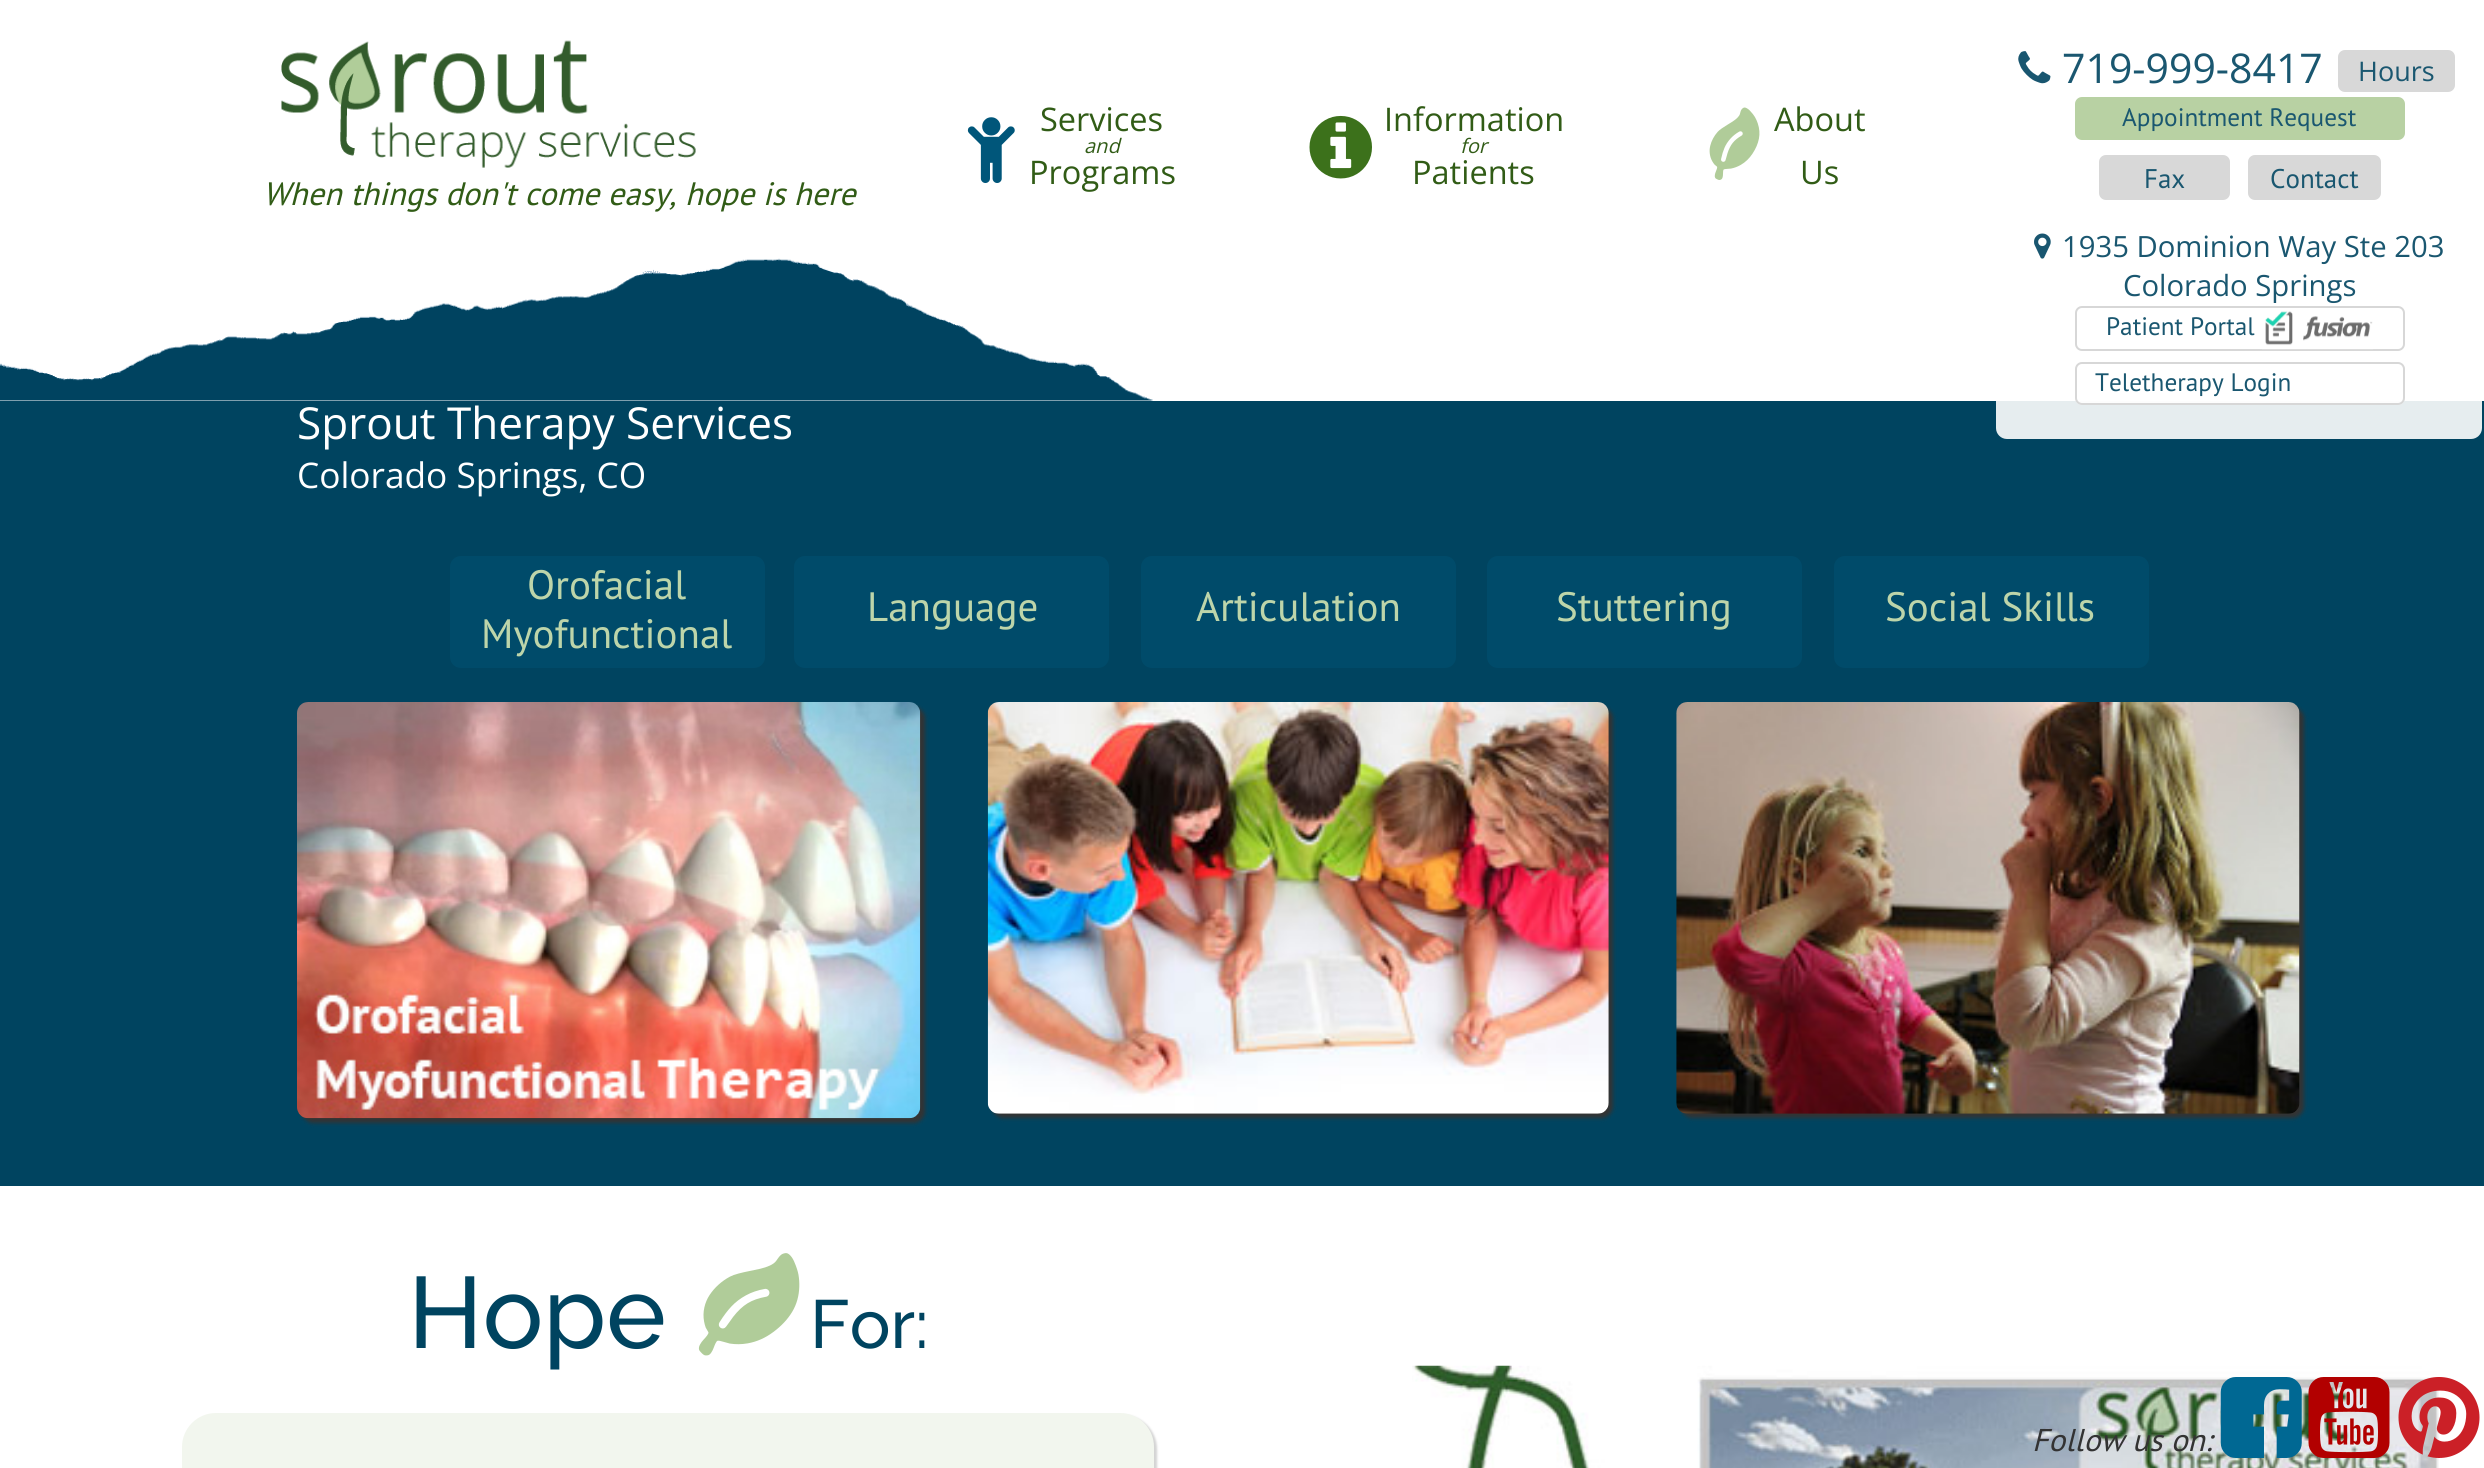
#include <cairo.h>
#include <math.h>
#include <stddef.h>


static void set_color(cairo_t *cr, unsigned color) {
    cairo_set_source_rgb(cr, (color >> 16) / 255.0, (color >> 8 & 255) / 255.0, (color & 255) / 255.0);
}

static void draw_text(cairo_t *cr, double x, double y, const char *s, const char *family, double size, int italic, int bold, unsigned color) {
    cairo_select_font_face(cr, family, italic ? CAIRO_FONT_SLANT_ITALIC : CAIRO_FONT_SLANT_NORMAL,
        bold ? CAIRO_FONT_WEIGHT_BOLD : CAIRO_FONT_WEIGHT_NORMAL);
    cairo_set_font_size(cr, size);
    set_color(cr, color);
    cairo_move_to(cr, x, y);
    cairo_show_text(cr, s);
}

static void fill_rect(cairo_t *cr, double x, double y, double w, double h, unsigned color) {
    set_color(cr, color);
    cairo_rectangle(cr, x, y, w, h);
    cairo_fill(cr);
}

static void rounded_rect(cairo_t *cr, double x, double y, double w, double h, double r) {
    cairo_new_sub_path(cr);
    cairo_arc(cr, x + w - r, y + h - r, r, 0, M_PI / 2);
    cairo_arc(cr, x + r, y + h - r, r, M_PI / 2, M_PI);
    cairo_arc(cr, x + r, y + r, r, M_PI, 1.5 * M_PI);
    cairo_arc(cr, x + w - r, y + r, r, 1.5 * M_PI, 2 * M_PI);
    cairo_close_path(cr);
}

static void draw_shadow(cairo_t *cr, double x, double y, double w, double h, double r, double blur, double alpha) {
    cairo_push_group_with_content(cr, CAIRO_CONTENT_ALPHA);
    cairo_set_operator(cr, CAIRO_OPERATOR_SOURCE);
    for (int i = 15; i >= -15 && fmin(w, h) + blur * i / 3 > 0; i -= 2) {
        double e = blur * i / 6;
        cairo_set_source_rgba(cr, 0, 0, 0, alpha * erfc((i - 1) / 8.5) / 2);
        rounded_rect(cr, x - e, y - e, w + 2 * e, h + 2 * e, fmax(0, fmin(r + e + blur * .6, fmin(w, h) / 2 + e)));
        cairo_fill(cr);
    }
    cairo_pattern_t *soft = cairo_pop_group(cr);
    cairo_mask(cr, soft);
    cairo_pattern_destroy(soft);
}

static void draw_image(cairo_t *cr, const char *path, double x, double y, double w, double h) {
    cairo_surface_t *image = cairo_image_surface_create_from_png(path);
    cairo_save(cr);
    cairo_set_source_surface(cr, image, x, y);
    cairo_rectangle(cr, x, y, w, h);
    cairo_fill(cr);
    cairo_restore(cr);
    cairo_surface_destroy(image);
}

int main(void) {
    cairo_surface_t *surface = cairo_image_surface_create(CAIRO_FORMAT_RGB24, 2484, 1468);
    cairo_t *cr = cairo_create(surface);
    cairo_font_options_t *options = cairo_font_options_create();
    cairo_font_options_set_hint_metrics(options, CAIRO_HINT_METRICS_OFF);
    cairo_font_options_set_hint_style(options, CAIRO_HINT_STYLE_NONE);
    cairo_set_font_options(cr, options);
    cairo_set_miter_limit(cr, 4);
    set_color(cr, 0xFFFFFF);
    cairo_paint(cr);
    draw_image(cr, "assets/img1.png", 281, 40, 415, 128);
    draw_text(cr, 263, 205, "When things don't come easy, hope is here", "PT Sans", 32.4, 1, 0, 0x315C16);
    draw_image(cr, "assets/img2.png", 967, 117, 48, 66);
    draw_text(cr, 1040, 131, "Services", "Open Sans", 32.5, 0, 0, 0x315C16);
    draw_text(cr, 1084, 153, "and", "Open Sans", 20, 1, 0, 0x315C16);
    draw_text(cr, 1029, 184, "Programs", "Open Sans", 32.5, 0, 0, 0x315C16);
    draw_image(cr, "assets/img3.png", 1309, 115, 63, 64);
    draw_text(cr, 1384, 131, "Information", "Open Sans", 32.5, 0, 0, 0x315C16);
    draw_text(cr, 1460, 153, "for", "Open Sans", 20, 1, 0, 0x315C16);
    draw_text(cr, 1412, 184, "Patients", "Open Sans", 32.5, 0, 0, 0x315C16);
    draw_image(cr, "assets/img4.png", 1709, 107, 51, 73);
    draw_text(cr, 1774, 131, "About", "Open Sans", 32.5, 0, 0, 0x315C16);
    draw_text(cr, 1800, 184, "Us", "Open Sans", 32.5, 0, 0, 0x315C16);
    fill_rect(cr, 0, 401, 2484, 785, 0x004460);
    cairo_set_source_rgba(cr, 1, 1, 1, 0.9);
    rounded_rect(cr, 1996, 23, 486, 416, 11);
    cairo_fill(cr);
    draw_image(cr, "assets/img5.png", 2018, 51, 33, 33);
    draw_text(cr, 2062, 83, "719-999-8417", "Open Sans", 41, 0, 0, 0x1A5770);
    set_color(cr, 0xD8D8D8);
    rounded_rect(cr, 2338, 50, 117, 42, 7);
    cairo_fill(cr);
    draw_text(cr, 2358, 81, "Hours", "Open Sans", 27, 0, 0, 0x1A5770);
    set_color(cr, 0xB8D1A3);
    rounded_rect(cr, 2075, 97, 330, 43, 7);
    cairo_fill(cr);
    draw_text(cr, 2122, 126, "Appointment Request", "PT Sans", 25.25, 0, 0, 0x1A5770);
    set_color(cr, 0xD8D8D8);
    rounded_rect(cr, 2099, 155, 131, 45, 7);
    cairo_fill(cr);
    draw_text(cr, 2144, 188, "Fax", "PT Sans", 27, 0, 0, 0x1A5770);
    set_color(cr, 0xD8D8D8);
    rounded_rect(cr, 2248, 155, 133, 45, 7);
    cairo_fill(cr);
    draw_text(cr, 2270, 188, "Contact", "PT Sans", 27, 0, 0, 0x1A5770);
    draw_image(cr, "assets/img6.png", 2034, 233, 17, 26);
    draw_text(cr, 2062, 257, "1935 Dominion Way Ste 203", "Open Sans", 29.25, 0, 0, 0x1A5770);
    draw_text(cr, 2123, 296, "Colorado Springs", "Open Sans", 29.25, 0, 0, 0x1A5770);
    rounded_rect(cr, 2076, 307, 328, 43, 6);
    set_color(cr, 0xD7D7D7);
    cairo_stroke(cr);
    draw_text(cr, 2106, 335, "Patient Portal", "PT Sans", 25.25, 0, 0, 0x1A5770);
    draw_image(cr, "assets/img7.png", 2262, 311, 111, 39);
    cairo_set_source_rgba(cr, 1, 1, 1, 0.9);
    rounded_rect(cr, 2075, 362, 330, 43, 7);
    cairo_fill(cr);
    rounded_rect(cr, 2076, 363, 328, 41, 6);
    cairo_set_source_rgba(cr, 0.827, 0.827, 0.827, 0.9);
    cairo_stroke(cr);
    draw_text(cr, 2095, 391, "Teletherapy Login", "PT Sans", 25.25, 0, 0, 0x1A5770);
    draw_image(cr, "assets/img8.png", 0, 258, 1153, 143);
    draw_text(cr, 297, 439, "Sprout Therapy Services", "Open Sans", 44.1, 0, 0, 0xFFFFFF);
    draw_text(cr, 297, 488, "Colorado Springs, CO", "Open Sans", 35.25, 0, 0, 0xFFFFFF);
    set_color(cr, 0x004B6A);
    rounded_rect(cr, 450, 556, 315, 112, 11);
    cairo_fill(cr);
    draw_text(cr, 527, 599, "Orofacial", "PT Sans", 41, 0, 0, 0xBDD5AA);
    draw_text(cr, 481, 648, "Myofunctional", "PT Sans", 41, 0, 0, 0xBDD5AA);
    set_color(cr, 0x004B6A);
    rounded_rect(cr, 794, 556, 315, 112, 11);
    cairo_fill(cr);
    draw_text(cr, 867, 621, "Language", "PT Sans", 41, 0, 0, 0xBDD5AA);
    set_color(cr, 0x004B6A);
    rounded_rect(cr, 1141, 556, 315, 112, 11);
    cairo_fill(cr);
    draw_text(cr, 1196, 621, "Articulation", "PT Sans", 41, 0, 0, 0xBDD5AA);
    set_color(cr, 0x004B6A);
    rounded_rect(cr, 1487, 556, 315, 112, 11);
    cairo_fill(cr);
    draw_text(cr, 1556, 621, "Stuttering", "PT Sans", 41, 0, 0, 0xBDD5AA);
    set_color(cr, 0x004B6A);
    rounded_rect(cr, 1834, 556, 315, 112, 11);
    cairo_fill(cr);
    draw_text(cr, 1885, 621, "Social Skills", "PT Sans", 41, 0, 0, 0xBDD5AA);
    set_color(cr, 0x333333);
    draw_shadow(cr, 302, 707, 623, 416, 11, 2, 1);
    draw_image(cr, "assets/img9.png", 297, 702, 624, 417);
    draw_shadow(cr, 992, 707, 621, 411, 11, 2, 1);
    draw_image(cr, "assets/img10.png", 987, 702, 622, 412);
    draw_shadow(cr, 1681, 707, 623, 411, 11, 2, 1);
    draw_image(cr, "assets/img11.png", 1676, 702, 624, 412);
    draw_text(cr, 408, 1348, "Hope", "Raleway Medium", 101, 0, 0, 0x004460);
    draw_image(cr, "assets/img12.png", 698, 1253, 102, 103);
    draw_text(cr, 810, 1348, "For:", "Raleway Medium", 68, 0, 0, 0x004460);
    set_color(cr, 0xD4D4D4);
    draw_shadow(cr, 185, 1415, 972, 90, 34, 1, 1);
    set_color(cr, 0xF2F6EE);
    rounded_rect(cr, 182, 1413, 972, 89, 34);
    cairo_fill(cr);
    draw_image(cr, "assets/img13.png", 1412, 1365, 1027, 103);
    draw_text(cr, 2032, 1451, "Follow us on:", "PT Sans", 31.5, 1, 0, 0x333333);
    draw_image(cr, "assets/img14.png", 2220, 1377, 82, 81);
    draw_image(cr, "assets/img15.png", 2308, 1377, 82, 81);
    draw_image(cr, "assets/img16.png", 2398, 1377, 82, 81);
    cairo_surface_write_to_png(surface, "output.png");
    cairo_font_options_destroy(options);
    cairo_destroy(cr);
    cairo_surface_destroy(surface);
    return 0;
}
